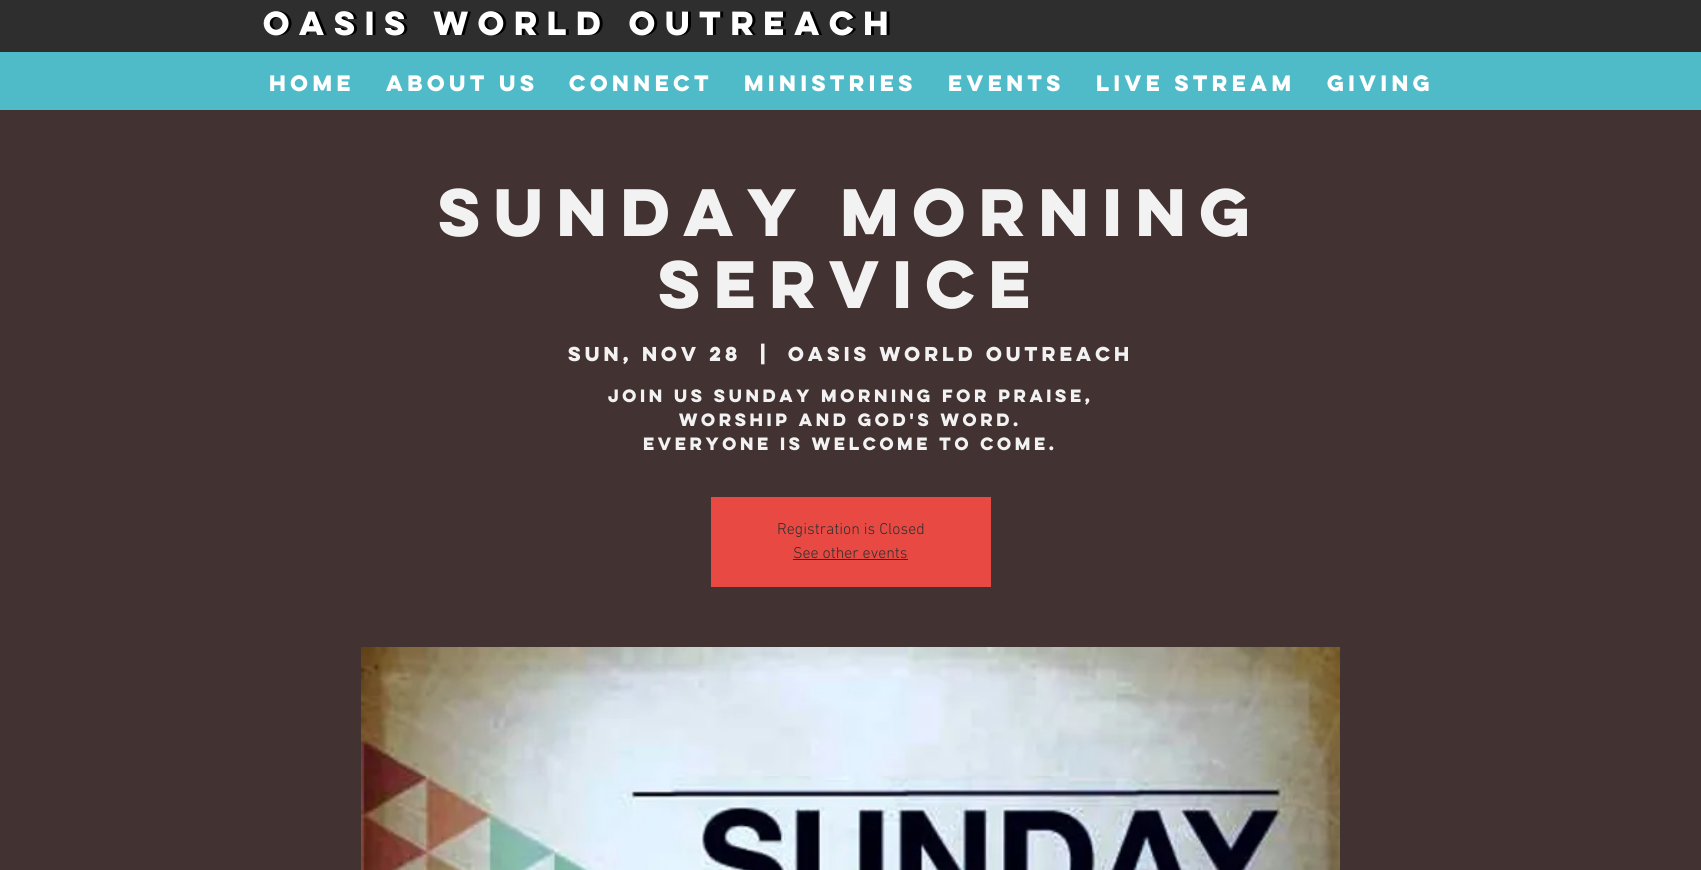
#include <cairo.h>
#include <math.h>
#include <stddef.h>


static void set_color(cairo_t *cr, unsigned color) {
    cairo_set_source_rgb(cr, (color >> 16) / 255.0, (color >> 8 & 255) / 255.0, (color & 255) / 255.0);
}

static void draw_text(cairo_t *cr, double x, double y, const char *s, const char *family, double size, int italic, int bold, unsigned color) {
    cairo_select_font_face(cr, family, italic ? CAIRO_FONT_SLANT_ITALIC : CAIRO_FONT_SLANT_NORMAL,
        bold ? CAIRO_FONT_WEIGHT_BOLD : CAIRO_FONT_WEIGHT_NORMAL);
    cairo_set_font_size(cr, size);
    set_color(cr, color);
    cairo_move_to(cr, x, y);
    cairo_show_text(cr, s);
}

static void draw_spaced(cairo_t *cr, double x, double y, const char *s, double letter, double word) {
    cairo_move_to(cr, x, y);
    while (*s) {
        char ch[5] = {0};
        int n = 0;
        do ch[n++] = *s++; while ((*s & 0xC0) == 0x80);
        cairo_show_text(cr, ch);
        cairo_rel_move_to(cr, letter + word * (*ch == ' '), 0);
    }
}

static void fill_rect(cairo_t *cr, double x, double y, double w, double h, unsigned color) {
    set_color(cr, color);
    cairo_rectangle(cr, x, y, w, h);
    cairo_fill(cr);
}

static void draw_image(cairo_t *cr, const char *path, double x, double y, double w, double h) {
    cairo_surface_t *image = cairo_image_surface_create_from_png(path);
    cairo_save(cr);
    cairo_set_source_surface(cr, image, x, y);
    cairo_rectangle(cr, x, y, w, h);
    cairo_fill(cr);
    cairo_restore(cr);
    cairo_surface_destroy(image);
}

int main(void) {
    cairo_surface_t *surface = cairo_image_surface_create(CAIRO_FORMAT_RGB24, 1701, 870);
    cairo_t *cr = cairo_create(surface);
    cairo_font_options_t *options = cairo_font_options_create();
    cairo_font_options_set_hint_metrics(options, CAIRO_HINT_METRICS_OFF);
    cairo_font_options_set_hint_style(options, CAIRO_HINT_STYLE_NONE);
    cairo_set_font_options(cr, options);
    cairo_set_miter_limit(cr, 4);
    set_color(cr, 0x2F2E2E);
    cairo_paint(cr);
    cairo_select_font_face(cr, "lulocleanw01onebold", CAIRO_FONT_SLANT_NORMAL, CAIRO_FONT_WEIGHT_BOLD);
    cairo_set_font_size(cr, 30);
    set_color(cr, 0x000000);
    draw_spaced(cr, 266, 35, "OASIS WORLD OUTREACH", 3, 0);
    set_color(cr, 0xFFFFFF);
    draw_spaced(cr, 263, 35, "OASIS WORLD OUTREACH", 3, 0);
    fill_rect(cr, 0, 52, 1701, 58, 0x4FBBC9);
    draw_text(cr, 269, 91, "HOME", "lulocleanw01onebold", 20, 0, 1, 0xFFFFFF);
    draw_text(cr, 386, 91, "ABOUT US", "lulocleanw01onebold", 20, 0, 1, 0xFFFFFF);
    draw_text(cr, 569, 91, "CONNECT", "lulocleanw01onebold", 20, 0, 1, 0xFFFFFF);
    draw_text(cr, 744, 91, "MINISTRIES", "lulocleanw01onebold", 20, 0, 1, 0xFFFFFF);
    draw_text(cr, 948, 91, "EVENTS", "lulocleanw01onebold", 20, 0, 1, 0xFFFFFF);
    draw_text(cr, 1096, 91, "LIVE STREAM", "lulocleanw01onebold", 20, 0, 1, 0xFFFFFF);
    draw_text(cr, 1327, 91, "GIVING", "lulocleanw01onebold", 20, 0, 1, 0xFFFFFF);
    fill_rect(cr, 0, 110, 1701, 760, 0x423231);
    draw_text(cr, 438, 236, "SUNDAY MORNING", "lulocleanw01onebold", 60, 0, 1, 0xF2F2F2);
    draw_text(cr, 658, 308, "SERVICE", "lulocleanw01onebold", 60, 0, 1, 0xF2F2F2);
    draw_text(cr, 568, 361, "Sun, Nov 28", "lulocleanw01onebold", 18, 0, 1, 0xF2F2F2);
    draw_text(cr, 760, 361, "|", "lulocleanw01onebold", 18, 0, 1, 0xF2F2F2);
    draw_text(cr, 788, 361, "OASIS WORLD OUTREACH", "lulocleanw01onebold", 18, 0, 1, 0xF2F2F2);
    draw_text(cr, 608, 402, "JOIN US SUNDAY MORNING FOR PRAISE,", "lulocleanw01onebold", 16, 0, 1, 0xF2F2F2);
    draw_text(cr, 679, 426, "WORSHIP AND GOD'S WORD.", "lulocleanw01onebold", 16, 0, 1, 0xF2F2F2);
    draw_text(cr, 643, 450, "EVERYONE IS WELCOME TO COME.", "lulocleanw01onebold", 16, 0, 1, 0xF2F2F2);
    fill_rect(cr, 711, 497, 280, 90, 0xE84A43);
    draw_text(cr, 777, 534, "Registration is Closed", "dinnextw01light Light", 16, 0, 0, 0x2F2E2E);
    draw_text(cr, 793, 558, "See other events", "dinnextw01light Light", 16, 0, 0, 0x2F2E2E);
    fill_rect(cr, 793, 559, 115, 1, 0x2F2E2E);
    draw_image(cr, "assets/img1.png", 361, 647, 979, 223);
    cairo_surface_write_to_png(surface, "output.png");
    cairo_font_options_destroy(options);
    cairo_destroy(cr);
    cairo_surface_destroy(surface);
    return 0;
}
